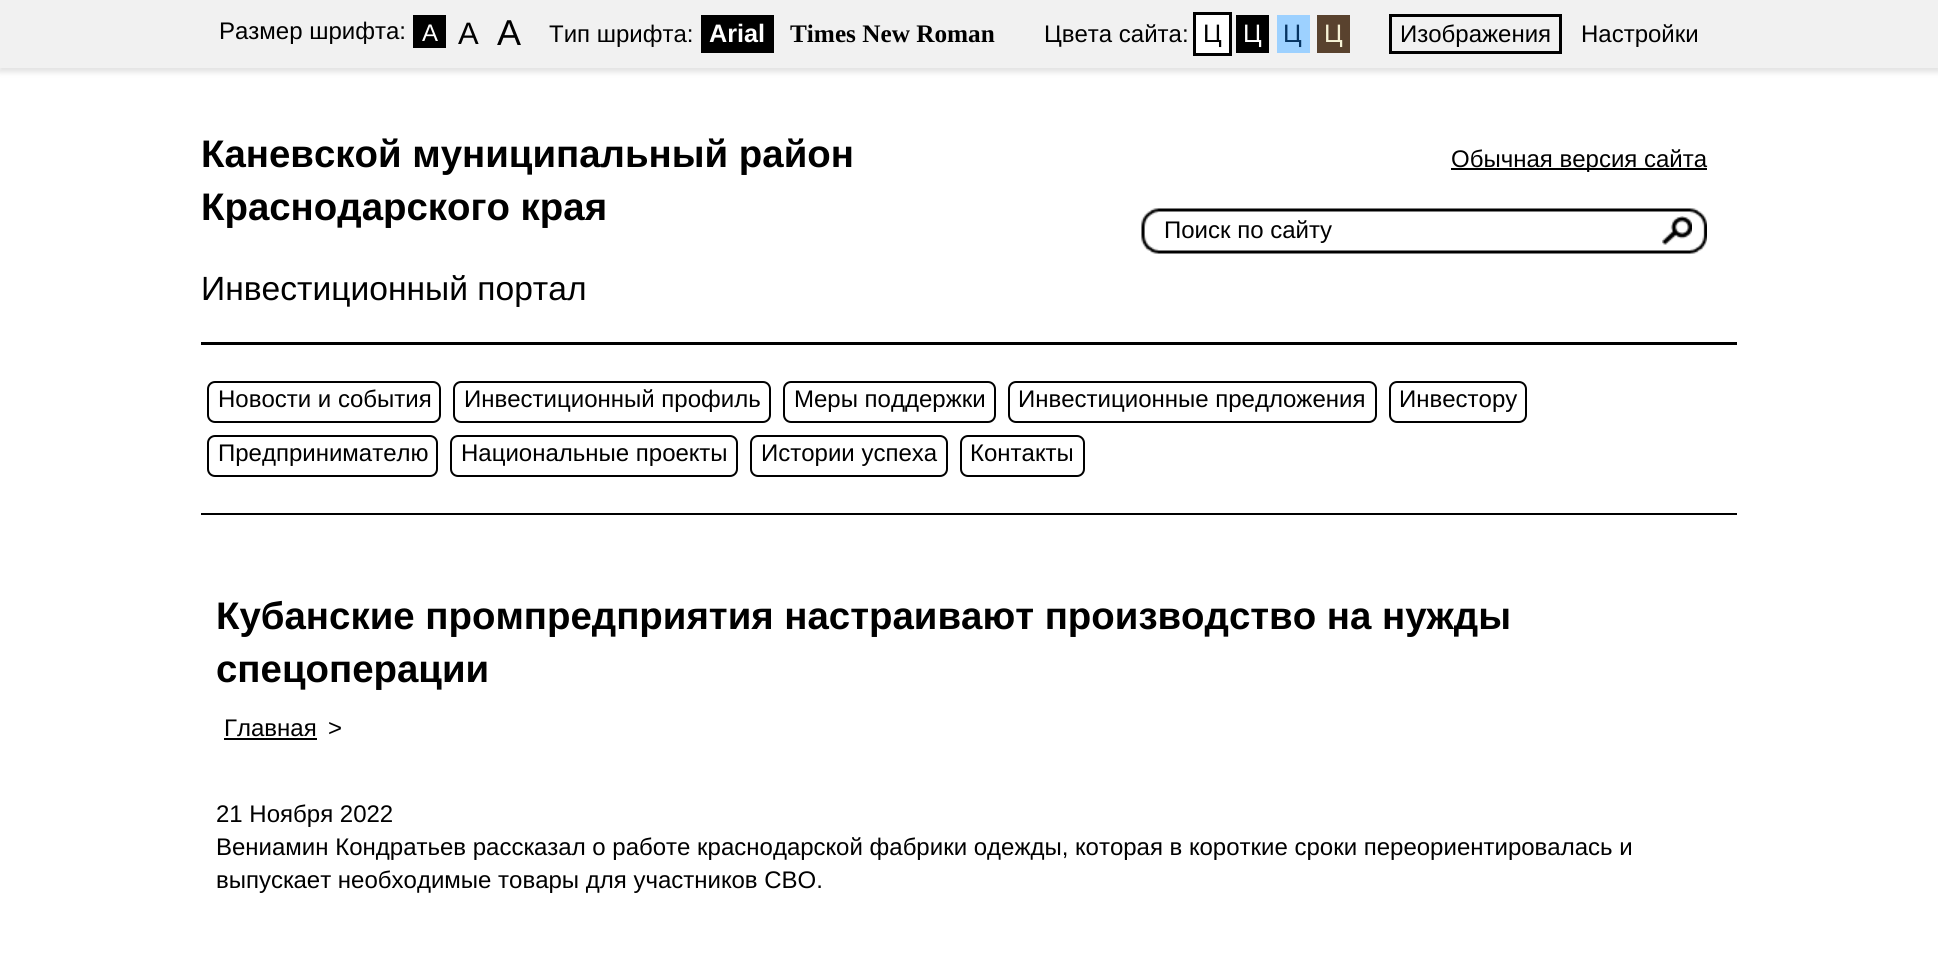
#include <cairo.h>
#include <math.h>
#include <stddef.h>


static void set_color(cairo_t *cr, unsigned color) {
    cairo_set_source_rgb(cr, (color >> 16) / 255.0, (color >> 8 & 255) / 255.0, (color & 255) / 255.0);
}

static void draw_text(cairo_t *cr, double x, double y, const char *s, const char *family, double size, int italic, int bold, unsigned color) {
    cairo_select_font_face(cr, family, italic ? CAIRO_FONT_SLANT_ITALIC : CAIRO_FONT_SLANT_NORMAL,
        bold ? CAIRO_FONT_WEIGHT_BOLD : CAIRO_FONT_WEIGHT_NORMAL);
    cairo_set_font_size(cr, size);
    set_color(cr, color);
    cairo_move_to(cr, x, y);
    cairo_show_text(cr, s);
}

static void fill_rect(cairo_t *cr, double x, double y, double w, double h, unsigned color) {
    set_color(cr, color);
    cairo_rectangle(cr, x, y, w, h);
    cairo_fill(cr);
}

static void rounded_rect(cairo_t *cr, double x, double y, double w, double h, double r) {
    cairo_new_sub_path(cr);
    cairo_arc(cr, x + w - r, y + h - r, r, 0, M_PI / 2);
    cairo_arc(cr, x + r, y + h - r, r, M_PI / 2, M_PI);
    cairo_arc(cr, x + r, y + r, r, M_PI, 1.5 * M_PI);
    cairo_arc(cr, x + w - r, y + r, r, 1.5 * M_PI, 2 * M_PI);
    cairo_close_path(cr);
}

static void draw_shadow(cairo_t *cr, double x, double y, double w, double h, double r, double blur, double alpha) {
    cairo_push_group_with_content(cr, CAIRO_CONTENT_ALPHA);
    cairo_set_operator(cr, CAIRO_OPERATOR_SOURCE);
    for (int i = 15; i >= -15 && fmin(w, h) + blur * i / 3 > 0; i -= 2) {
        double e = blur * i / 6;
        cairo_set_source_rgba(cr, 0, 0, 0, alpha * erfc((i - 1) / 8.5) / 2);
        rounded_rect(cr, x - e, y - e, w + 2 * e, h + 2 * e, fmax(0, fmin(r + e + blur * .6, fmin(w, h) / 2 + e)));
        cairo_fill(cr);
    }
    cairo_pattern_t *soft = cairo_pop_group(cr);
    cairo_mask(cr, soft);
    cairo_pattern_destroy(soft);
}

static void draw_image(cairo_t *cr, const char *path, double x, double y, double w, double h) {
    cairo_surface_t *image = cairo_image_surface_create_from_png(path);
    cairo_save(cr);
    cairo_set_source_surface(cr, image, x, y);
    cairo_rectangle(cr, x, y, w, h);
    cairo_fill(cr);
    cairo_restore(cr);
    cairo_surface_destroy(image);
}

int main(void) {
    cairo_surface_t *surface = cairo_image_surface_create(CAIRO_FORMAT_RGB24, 1938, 959);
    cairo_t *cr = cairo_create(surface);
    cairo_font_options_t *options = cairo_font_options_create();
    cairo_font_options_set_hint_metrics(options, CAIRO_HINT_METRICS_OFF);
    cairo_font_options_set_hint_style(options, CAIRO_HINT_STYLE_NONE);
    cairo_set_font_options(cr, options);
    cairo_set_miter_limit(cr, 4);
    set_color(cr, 0xFFFFFF);
    cairo_paint(cr);
    set_color(cr, 0x010101);
    draw_shadow(cr, -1, 2, 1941, 70, 0, 3, 0.12);
    fill_rect(cr, 0, 0, 1938, 68, 0xF1F1F1);
    draw_text(cr, 219, 39, "Размер шрифта:", "Liberation Sans", 24, 0, 0, 0x000000);
    fill_rect(cr, 413, 15, 33, 33, 0x000000);
    draw_text(cr, 422, 41, "A", "Liberation Sans", 24, 0, 0, 0xFFFFFF);
    draw_text(cr, 458, 44, "A", "Liberation Sans", 31, 0, 0, 0x000000);
    draw_text(cr, 497, 45, "A", "Liberation Sans", 36, 0, 0, 0x000000);
    draw_text(cr, 549, 42, "Тип шрифта:", "Liberation Sans", 24, 0, 0, 0x000000);
    fill_rect(cr, 701, 15, 73, 38, 0x000000);
    draw_text(cr, 709, 42, "Arial", "Liberation Sans", 25.25, 0, 1, 0xFFFFFF);
    draw_text(cr, 790, 42, "Times New Roman", "Liberation Serif", 25.25, 0, 1, 0x000000);
    draw_text(cr, 1044, 42, "Цвета сайта:", "Liberation Sans", 24, 0, 0, 0x000000);
    fill_rect(cr, 1196, 15, 33, 38, 0xFFFFFF);
    draw_text(cr, 1203, 42, "Ц", "Liberation Sans", 25.25, 0, 0, 0x000000);
    cairo_rectangle(cr, 1194.5, 13.5, 36, 41);
    cairo_set_line_width(cr, 3);
    cairo_stroke(cr);
    fill_rect(cr, 1236, 15, 33, 38, 0x000000);
    draw_text(cr, 1243, 42, "Ц", "Liberation Sans", 25.25, 0, 0, 0xFFFFFF);
    fill_rect(cr, 1277, 15, 33, 38, 0x9DD1FF);
    draw_text(cr, 1283, 42, "Ц", "Liberation Sans", 25.25, 0, 0, 0x063462);
    fill_rect(cr, 1317, 15, 33, 38, 0x59422E);
    draw_text(cr, 1324, 42, "Ц", "Liberation Sans", 25.25, 0, 0, 0xF7F3D6);
    draw_text(cr, 1400, 42, "Изображения", "Liberation Sans", 24, 0, 0, 0x000000);
    cairo_rectangle(cr, 1390.5, 15.5, 170, 37);
    cairo_stroke(cr);
    draw_text(cr, 1581, 42, "Настройки", "Liberation Sans", 24, 0, 0, 0x000000);
    draw_text(cr, 201, 167, "Каневской муниципальный район", "Liberation Sans", 38.4, 0, 1, 0x000000);
    draw_text(cr, 201, 220, "Краснодарского края", "Liberation Sans", 38.4, 0, 1, 0x000000);
    draw_text(cr, 201, 300, "Инвестиционный портал", "Liberation Sans", 33.6, 0, 0, 0x000000);
    fill_rect(cr, 1451, 168, 256, 2, 0x000000);
    draw_text(cr, 1451, 167, "Обычная версия сайта", "Liberation Sans", 24, 0, 0, 0x000000);
    draw_image(cr, "assets/img1.png", 1141, 208, 566, 46);
    fill_rect(cr, 1157, 213, 2, 1, 0xFFFFFF);
    draw_text(cr, 1164, 238, "Поиск по сайту", "Liberation Sans", 24, 0, 0, 0x000000);
    draw_image(cr, "assets/img2.png", 1662, 216, 30, 29);
    fill_rect(cr, 201, 342, 1536, 3, 0x000000);
    fill_rect(cr, 201, 513, 1536, 2, 0x000000);
    rounded_rect(cr, 208, 382, 232, 40, 7);
    cairo_set_line_width(cr, 2);
    cairo_stroke(cr);
    draw_text(cr, 218, 407, "Новости и события", "Liberation Sans", 24, 0, 0, 0x000000);
    rounded_rect(cr, 454, 382, 316, 40, 7);
    cairo_stroke(cr);
    draw_text(cr, 464, 407, "Инвестиционный профиль", "Liberation Sans", 24, 0, 0, 0x000000);
    rounded_rect(cr, 784, 382, 211, 40, 7);
    cairo_stroke(cr);
    draw_text(cr, 794, 407, "Меры поддержки", "Liberation Sans", 24, 0, 0, 0x000000);
    rounded_rect(cr, 1009, 382, 367, 40, 7);
    cairo_stroke(cr);
    draw_text(cr, 1018, 407, "Инвестиционные предложения", "Liberation Sans", 24, 0, 0, 0x000000);
    rounded_rect(cr, 1390, 382, 136, 40, 7);
    cairo_stroke(cr);
    draw_text(cr, 1399, 407, "Инвестору", "Liberation Sans", 24, 0, 0, 0x000000);
    rounded_rect(cr, 208, 436, 229, 40, 7);
    cairo_stroke(cr);
    draw_text(cr, 218, 461, "Предпринимателю", "Liberation Sans", 24, 0, 0, 0x000000);
    rounded_rect(cr, 451, 436, 286, 40, 7);
    cairo_stroke(cr);
    draw_text(cr, 461, 461, "Национальные проекты", "Liberation Sans", 24, 0, 0, 0x000000);
    rounded_rect(cr, 751, 436, 196, 40, 7);
    cairo_stroke(cr);
    draw_text(cr, 761, 461, "Истории успеха", "Liberation Sans", 24, 0, 0, 0x000000);
    rounded_rect(cr, 961, 436, 123, 40, 7);
    cairo_stroke(cr);
    draw_text(cr, 970, 461, "Контакты", "Liberation Sans", 24, 0, 0, 0x000000);
    draw_text(cr, 216, 629, "Кубанские промпредприятия настраивают производство на нужды", "Liberation Sans", 38.4, 0, 1, 0x000000);
    draw_text(cr, 216, 682, "спецоперации", "Liberation Sans", 38.4, 0, 1, 0x000000);
    draw_text(cr, 224, 736, "Главная", "Liberation Sans", 24, 0, 0, 0x000000);
    fill_rect(cr, 224, 738, 93, 2, 0x000000);
    draw_text(cr, 328, 736, ">", "Liberation Sans", 24, 0, 0, 0x000000);
    draw_text(cr, 216, 822, "21 Ноября 2022", "Liberation Sans", 24, 0, 0, 0x000000);
    draw_text(cr, 216, 855, "Вениамин Кондратьев рассказал о работе краснодарской фабрики одежды, которая в короткие сроки переориентировалась и", "Liberation Sans", 24, 0, 0, 0x000000);
    draw_text(cr, 216, 888, "выпускает необходимые товары для участников СВО.", "Liberation Sans", 24, 0, 0, 0x000000);
    cairo_surface_write_to_png(surface, "output.png");
    cairo_font_options_destroy(options);
    cairo_destroy(cr);
    cairo_surface_destroy(surface);
    return 0;
}
